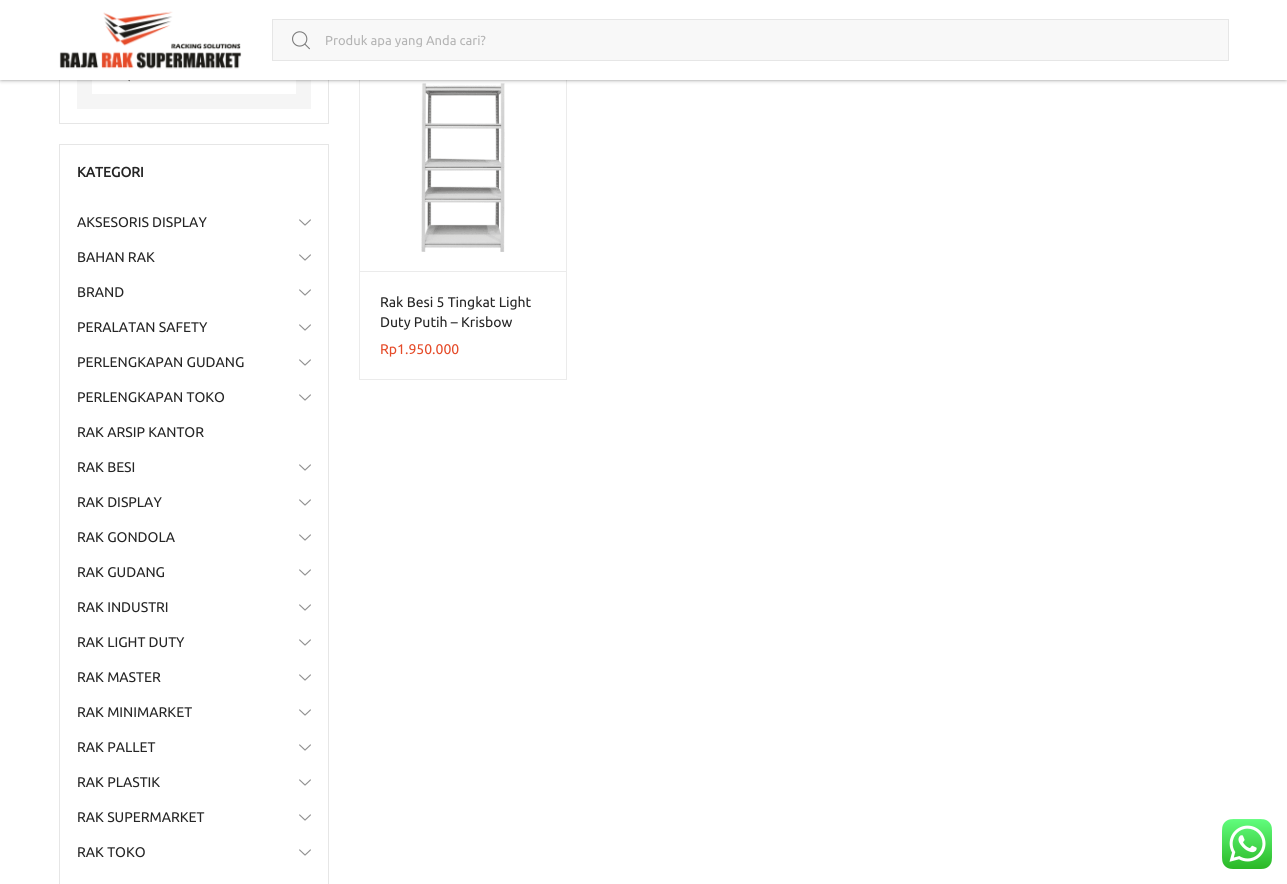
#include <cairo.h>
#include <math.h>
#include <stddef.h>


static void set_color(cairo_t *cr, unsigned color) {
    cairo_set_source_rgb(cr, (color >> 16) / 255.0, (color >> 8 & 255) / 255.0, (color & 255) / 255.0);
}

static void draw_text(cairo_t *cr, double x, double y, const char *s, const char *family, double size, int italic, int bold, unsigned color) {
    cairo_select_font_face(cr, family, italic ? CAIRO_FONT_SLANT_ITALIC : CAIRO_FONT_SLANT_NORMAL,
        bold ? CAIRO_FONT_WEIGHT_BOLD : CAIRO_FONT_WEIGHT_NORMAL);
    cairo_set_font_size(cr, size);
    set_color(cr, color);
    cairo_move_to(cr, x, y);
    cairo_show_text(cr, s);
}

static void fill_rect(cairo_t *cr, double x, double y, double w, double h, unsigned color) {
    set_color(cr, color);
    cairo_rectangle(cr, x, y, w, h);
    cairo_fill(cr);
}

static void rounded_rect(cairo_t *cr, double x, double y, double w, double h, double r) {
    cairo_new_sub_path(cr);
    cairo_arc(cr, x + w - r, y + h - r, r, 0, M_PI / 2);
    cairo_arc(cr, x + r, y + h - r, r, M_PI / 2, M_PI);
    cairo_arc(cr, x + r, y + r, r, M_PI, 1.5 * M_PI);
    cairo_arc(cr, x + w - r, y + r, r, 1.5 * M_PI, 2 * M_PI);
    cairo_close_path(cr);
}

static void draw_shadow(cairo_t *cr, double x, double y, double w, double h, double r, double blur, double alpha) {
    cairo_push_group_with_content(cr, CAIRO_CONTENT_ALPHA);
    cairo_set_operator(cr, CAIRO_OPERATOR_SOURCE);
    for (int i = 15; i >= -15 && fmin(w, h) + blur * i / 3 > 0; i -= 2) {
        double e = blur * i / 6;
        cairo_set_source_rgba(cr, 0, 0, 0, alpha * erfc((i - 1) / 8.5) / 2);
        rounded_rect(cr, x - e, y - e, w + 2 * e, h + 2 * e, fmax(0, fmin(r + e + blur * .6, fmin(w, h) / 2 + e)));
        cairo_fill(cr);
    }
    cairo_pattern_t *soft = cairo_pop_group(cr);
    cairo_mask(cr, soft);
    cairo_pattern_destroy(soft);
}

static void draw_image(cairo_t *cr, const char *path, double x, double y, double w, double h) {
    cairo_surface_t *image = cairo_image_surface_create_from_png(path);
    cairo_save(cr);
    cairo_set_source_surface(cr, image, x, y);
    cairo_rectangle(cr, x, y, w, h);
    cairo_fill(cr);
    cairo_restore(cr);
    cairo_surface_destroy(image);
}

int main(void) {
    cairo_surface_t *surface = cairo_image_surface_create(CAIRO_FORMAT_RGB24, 1287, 884);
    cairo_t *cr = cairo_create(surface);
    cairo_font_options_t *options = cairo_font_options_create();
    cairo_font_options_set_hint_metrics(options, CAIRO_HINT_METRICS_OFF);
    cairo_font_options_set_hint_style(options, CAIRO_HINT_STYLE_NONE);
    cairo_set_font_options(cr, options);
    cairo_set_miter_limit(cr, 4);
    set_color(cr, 0xFFFFFF);
    cairo_paint(cr);
    cairo_rectangle(cr, 59.5, -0.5, 269, 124);
    set_color(cr, 0xE6E6E6);
    cairo_set_line_width(cr, 1);
    cairo_stroke(cr);
    fill_rect(cr, 77, 80, 234, 29, 0xF5F5F5);
    fill_rect(cr, 92, 80, 204, 14, 0xFFFFFF);
    draw_image(cr, "assets/img3.png", 128, 80, 2, 2);
    cairo_rectangle(cr, 359.5, 63.5, 207, 316);
    set_color(cr, 0xEBEBEB);
    cairo_stroke(cr);
    draw_image(cr, "assets/img5.png", 421, 83, 84, 169);
    set_color(cr, 0x000000);
    draw_shadow(cr, 1, 1, 1285, 78, 0, 2.5, 0.66);
    fill_rect(cr, 0, 0, 1287, 80, 0xFFFFFF);
    draw_image(cr, "assets/img1.png", 59, 11, 183, 58);
    set_color(cr, 0xF8F8F8);
    cairo_rectangle(cr, 272.5, 19.5, 956, 41);
    cairo_fill_preserve(cr);
    set_color(cr, 0xE6E6E6);
    cairo_stroke(cr);
    draw_image(cr, "assets/img2.png", 292, 31, 18, 19);
    cairo_save(cr);
    cairo_rectangle(cr, 325, 33, 877, 14);
    cairo_clip(cr);
    draw_text(cr, 325, 45, "Produk apa yang Anda cari?", "Ubuntu", 13, 0, 0, 0xB4B4B4);
    cairo_restore(cr);
    cairo_rectangle(cr, 59.5, 144.5, 269, 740);
    cairo_stroke(cr);
    draw_text(cr, 77, 177, "KATEGORI", "Ubuntu", 14, 0, 1, 0x252525);
    draw_text(cr, 77, 227, "AKSESORIS DISPLAY", "Ubuntu", 14, 0, 0, 0x252525);
    draw_image(cr, "assets/img4.png", 299, 219, 12, 7);
    draw_text(cr, 77, 262, "BAHAN RAK", "Ubuntu", 14, 0, 0, 0x252525);
    draw_image(cr, "assets/img4.png", 299, 254, 12, 7);
    draw_text(cr, 77, 297, "BRAND", "Ubuntu", 14, 0, 0, 0x252525);
    draw_image(cr, "assets/img4.png", 299, 289, 12, 7);
    draw_text(cr, 77, 332, "PERALATAN SAFETY", "Ubuntu", 14, 0, 0, 0x252525);
    draw_image(cr, "assets/img4.png", 299, 324, 12, 7);
    draw_text(cr, 77, 367, "PERLENGKAPAN GUDANG", "Ubuntu", 14, 0, 0, 0x252525);
    draw_image(cr, "assets/img4.png", 299, 359, 12, 7);
    draw_text(cr, 77, 402, "PERLENGKAPAN TOKO", "Ubuntu", 14, 0, 0, 0x252525);
    draw_image(cr, "assets/img4.png", 299, 394, 12, 7);
    draw_text(cr, 77, 437, "RAK ARSIP KANTOR", "Ubuntu", 14, 0, 0, 0x252525);
    draw_text(cr, 77, 472, "RAK BESI", "Ubuntu", 14, 0, 0, 0x252525);
    draw_image(cr, "assets/img4.png", 299, 464, 12, 7);
    draw_text(cr, 77, 507, "RAK DISPLAY", "Ubuntu", 14, 0, 0, 0x252525);
    draw_image(cr, "assets/img4.png", 299, 499, 12, 7);
    draw_text(cr, 77, 542, "RAK GONDOLA", "Ubuntu", 14, 0, 0, 0x252525);
    draw_image(cr, "assets/img4.png", 299, 534, 12, 7);
    draw_text(cr, 77, 577, "RAK GUDANG", "Ubuntu", 14, 0, 0, 0x252525);
    draw_image(cr, "assets/img4.png", 299, 569, 12, 7);
    draw_text(cr, 77, 612, "RAK INDUSTRI", "Ubuntu", 14, 0, 0, 0x252525);
    draw_image(cr, "assets/img4.png", 299, 604, 12, 7);
    draw_text(cr, 77, 647, "RAK LIGHT DUTY", "Ubuntu", 14, 0, 0, 0x252525);
    draw_image(cr, "assets/img4.png", 299, 639, 12, 7);
    draw_text(cr, 77, 682, "RAK MASTER", "Ubuntu", 14, 0, 0, 0x252525);
    draw_image(cr, "assets/img4.png", 299, 674, 12, 7);
    draw_text(cr, 77, 717, "RAK MINIMARKET", "Ubuntu", 14, 0, 0, 0x252525);
    draw_image(cr, "assets/img4.png", 299, 709, 12, 7);
    draw_text(cr, 77, 752, "RAK PALLET", "Ubuntu", 14, 0, 0, 0x252525);
    draw_image(cr, "assets/img4.png", 299, 744, 12, 7);
    draw_text(cr, 77, 787, "RAK PLASTIK", "Ubuntu", 14, 0, 0, 0x252525);
    draw_image(cr, "assets/img4.png", 299, 779, 12, 7);
    draw_text(cr, 77, 822, "RAK SUPERMARKET", "Ubuntu", 14, 0, 0, 0x252525);
    draw_image(cr, "assets/img4.png", 299, 814, 12, 7);
    draw_text(cr, 77, 857, "RAK TOKO", "Ubuntu", 14, 0, 0, 0x252525);
    draw_image(cr, "assets/img4.png", 299, 849, 12, 7);
    fill_rect(cr, 360, 271, 206, 1, 0xEBEBEB);
    draw_text(cr, 380, 307, "Rak Besi 5 Tingkat Light", "Ubuntu", 14, 0, 0, 0x252525);
    draw_text(cr, 380, 327, "Duty Putih – Krisbow", "Ubuntu", 14, 0, 0, 0x252525);
    draw_text(cr, 380, 354, "Rp1.950.000", "Ubuntu", 14, 0, 0, 0xE54B29);
    draw_image(cr, "assets/img6.png", 1222, 819, 50, 50);
    cairo_surface_write_to_png(surface, "output.png");
    cairo_font_options_destroy(options);
    cairo_destroy(cr);
    cairo_surface_destroy(surface);
    return 0;
}
